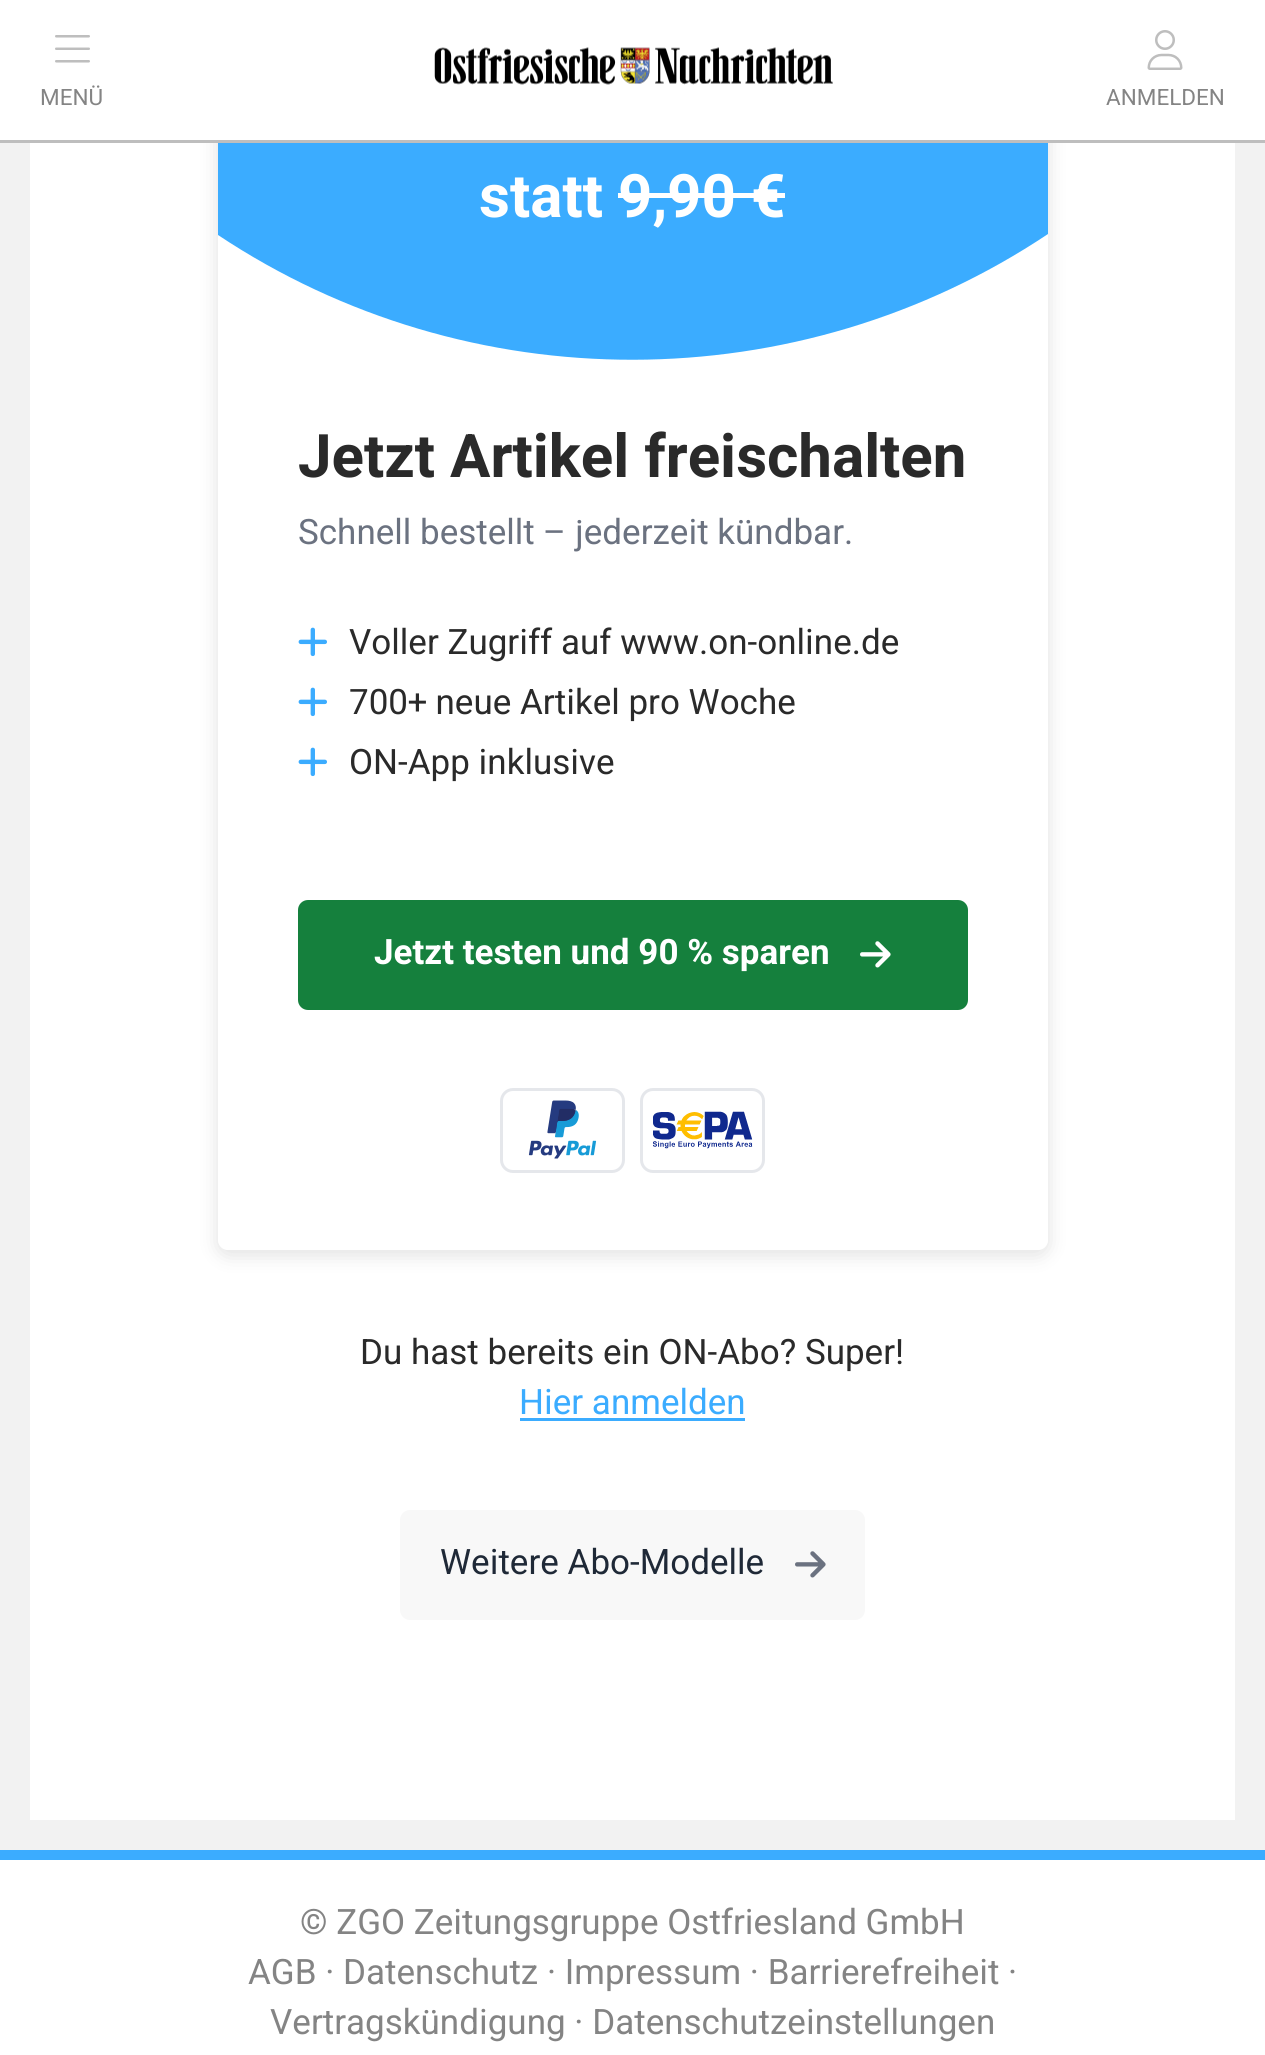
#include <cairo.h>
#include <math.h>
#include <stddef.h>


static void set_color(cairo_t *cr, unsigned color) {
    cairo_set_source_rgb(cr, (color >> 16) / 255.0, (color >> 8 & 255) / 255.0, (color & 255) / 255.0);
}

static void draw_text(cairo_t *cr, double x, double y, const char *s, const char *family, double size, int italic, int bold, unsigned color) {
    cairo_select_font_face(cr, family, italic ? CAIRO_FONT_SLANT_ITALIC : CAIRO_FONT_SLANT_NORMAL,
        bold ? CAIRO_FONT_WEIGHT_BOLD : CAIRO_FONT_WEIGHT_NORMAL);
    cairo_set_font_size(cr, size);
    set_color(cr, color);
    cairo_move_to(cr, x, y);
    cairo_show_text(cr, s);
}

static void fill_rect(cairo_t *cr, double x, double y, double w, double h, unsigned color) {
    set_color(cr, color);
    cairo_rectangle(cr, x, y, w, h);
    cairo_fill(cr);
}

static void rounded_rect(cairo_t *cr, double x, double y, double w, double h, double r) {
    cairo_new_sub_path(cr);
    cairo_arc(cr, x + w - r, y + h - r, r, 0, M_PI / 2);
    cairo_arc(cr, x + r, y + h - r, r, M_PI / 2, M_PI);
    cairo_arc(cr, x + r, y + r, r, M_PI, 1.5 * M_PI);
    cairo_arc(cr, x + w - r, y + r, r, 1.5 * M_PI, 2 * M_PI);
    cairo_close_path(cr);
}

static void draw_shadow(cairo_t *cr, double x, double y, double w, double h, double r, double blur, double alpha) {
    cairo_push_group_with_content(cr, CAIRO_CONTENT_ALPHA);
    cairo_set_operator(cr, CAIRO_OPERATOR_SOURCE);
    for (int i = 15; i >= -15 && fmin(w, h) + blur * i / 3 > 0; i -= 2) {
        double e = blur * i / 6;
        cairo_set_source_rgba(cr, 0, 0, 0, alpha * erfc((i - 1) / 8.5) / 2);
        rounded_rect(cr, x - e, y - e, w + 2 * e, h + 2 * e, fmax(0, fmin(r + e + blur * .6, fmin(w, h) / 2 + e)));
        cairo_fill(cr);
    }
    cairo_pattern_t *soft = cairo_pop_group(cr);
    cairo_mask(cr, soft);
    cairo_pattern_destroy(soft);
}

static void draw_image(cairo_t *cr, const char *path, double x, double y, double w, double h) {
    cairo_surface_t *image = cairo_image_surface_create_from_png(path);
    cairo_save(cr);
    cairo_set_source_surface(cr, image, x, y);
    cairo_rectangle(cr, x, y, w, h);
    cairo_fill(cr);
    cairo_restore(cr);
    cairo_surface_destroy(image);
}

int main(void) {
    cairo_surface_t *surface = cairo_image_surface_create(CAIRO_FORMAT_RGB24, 1265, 2055);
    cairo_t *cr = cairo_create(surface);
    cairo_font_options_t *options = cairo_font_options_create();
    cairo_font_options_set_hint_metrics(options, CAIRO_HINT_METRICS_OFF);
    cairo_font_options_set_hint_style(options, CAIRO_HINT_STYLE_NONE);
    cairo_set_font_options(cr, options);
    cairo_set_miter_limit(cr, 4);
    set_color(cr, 0xF2F2F2);
    cairo_paint(cr);
    fill_rect(cr, 30, 143, 1205, 1677, 0xFFFFFF);
    cairo_save(cr);
    cairo_set_fill_rule(cr, CAIRO_FILL_RULE_EVEN_ODD);
    cairo_new_path(cr);
    cairo_move_to(cr, 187, 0);
    cairo_line_to(cr, 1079, 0);
    cairo_line_to(cr, 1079, 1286);
    cairo_line_to(cr, 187, 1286);
    cairo_close_path(cr);
    cairo_move_to(cr, 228, -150);
    cairo_line_to(cr, 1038, -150);
    cairo_curve_to(cr, 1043.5, -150, 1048, -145.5, 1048, -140);
    cairo_line_to(cr, 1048, 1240);
    cairo_curve_to(cr, 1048, 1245.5, 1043.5, 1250, 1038, 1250);
    cairo_line_to(cr, 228, 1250);
    cairo_curve_to(cr, 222.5, 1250, 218, 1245.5, 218, 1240);
    cairo_line_to(cr, 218, -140);
    cairo_curve_to(cr, 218, -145.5, 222.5, -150, 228, -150);
    cairo_close_path(cr);
    cairo_clip(cr);
    set_color(cr, 0x000000);
    draw_shadow(cr, 218, -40, 830, 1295, 10, 10, 0.12);
    cairo_restore(cr);
    set_color(cr, 0x3BACFF);
    cairo_new_path(cr);
    cairo_move_to(cr, 228, -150);
    cairo_line_to(cr, 1038, -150);
    cairo_curve_to(cr, 1044, -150, 1048, -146, 1048, -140);
    cairo_line_to(cr, 1048, 234);
    cairo_curve_to(cr, 798, 401, 469, 402, 218, 235);
    cairo_line_to(cr, 218, -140);
    cairo_curve_to(cr, 218, -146, 222, -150, 228, -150);
    cairo_close_path(cr);
    cairo_fill(cr);
    fill_rect(cr, 0, 0, 1265, 140, 0xFFFFFF);
    fill_rect(cr, 0, 140, 1265, 3, 0xBEBEBE);
    draw_image(cr, "assets/img1.png", 434, 47, 399, 38);
    draw_image(cr, "assets/img2.png", 55, 35, 35, 28);
    draw_text(cr, 40, 105, "MENÜ", "Heebo", 22.5, 0, 0, 0x848484);
    draw_image(cr, "assets/img3.png", 1147, 30, 36, 40);
    draw_text(cr, 1106, 105, "ANMELDEN", "Heebo", 22.5, 0, 0, 0x848484);
    draw_text(cr, 479, 217, "statt 9,90 €", "Heebo", 60, 0, 1, 0xFFFFFF);
    fill_rect(cr, 618, 193, 167, 5, 0xFFFFFF);
    draw_text(cr, 298, 477, "Jetzt Artikel freischalten", "Heebo", 60, 0, 1, 0x2A2A2A);
    draw_text(cr, 298, 544, "Schnell bestellt – jederzeit kündbar.", "Heebo", 35, 0, 0, 0x6B7280);
    draw_image(cr, "assets/img4.png", 298, 627, 29, 30);
    draw_text(cr, 349, 654, "Voller Zugriff auf www.on-online.de", "Heebo", 35, 0, 0, 0x2A2A2A);
    draw_image(cr, "assets/img4.png", 298, 687, 29, 30);
    draw_text(cr, 349, 714, "700+ neue Artikel pro Woche", "Heebo", 35, 0, 0, 0x2A2A2A);
    draw_image(cr, "assets/img4.png", 298, 747, 29, 30);
    draw_text(cr, 349, 774, "ON-App inklusive", "Heebo", 35, 0, 0, 0x2A2A2A);
    set_color(cr, 0x15803D);
    rounded_rect(cr, 298, 900, 670, 110, 10);
    cairo_fill(cr);
    draw_text(cr, 374, 964, "Jetzt testen und 90 % sparen", "Heebo", 35, 0, 1, 0xFFFFFF);
    draw_image(cr, "assets/img5.png", 860, 941, 31, 27);
    draw_image(cr, "assets/img6.png", 528, 1100, 69, 59);
    rounded_rect(cr, 501.5, 1089.5, 122, 82, 11.5);
    set_color(cr, 0xE5E7EB);
    cairo_set_line_width(cr, 3);
    cairo_stroke(cr);
    draw_image(cr, "assets/img7.png", 653, 1111, 100, 38);
    rounded_rect(cr, 641.5, 1089.5, 122, 82, 11.5);
    cairo_stroke(cr);
    draw_text(cr, 360, 1364, "Du hast bereits ein ON-Abo? Super!", "Heebo", 35, 0, 0, 0x2A2A2A);
    draw_text(cr, 519, 1414, "Hier anmelden", "Heebo", 35, 0, 0, 0x3BACFF);
    fill_rect(cr, 520, 1418, 225, 3, 0x3BACFF);
    set_color(cr, 0xF8F8F8);
    rounded_rect(cr, 400, 1510, 465, 110, 10);
    cairo_fill(cr);
    draw_text(cr, 440, 1574, "Weitere Abo-Modelle", "Heebo", 35, 0, 0, 0x1F2937);
    draw_image(cr, "assets/img8.png", 795, 1551, 31, 27);
    fill_rect(cr, 0, 1860, 1265, 195, 0xFFFFFF);
    fill_rect(cr, 0, 1850, 1265, 10, 0x3BACFF);
    draw_text(cr, 300, 1934, "© ZGO Zeitungsgruppe Ostfriesland GmbH", "Heebo", 35, 0, 0, 0x848484);
    draw_text(cr, 248, 1984, "AGB · Datenschutz · Impressum · Barrierefreiheit ·", "Heebo", 35, 0, 0, 0x848484);
    draw_text(cr, 270, 2034, "Vertragskündigung · Datenschutzeinstellungen", "Heebo", 35, 0, 0, 0x848484);
    cairo_surface_write_to_png(surface, "output.png");
    cairo_font_options_destroy(options);
    cairo_destroy(cr);
    cairo_surface_destroy(surface);
    return 0;
}
